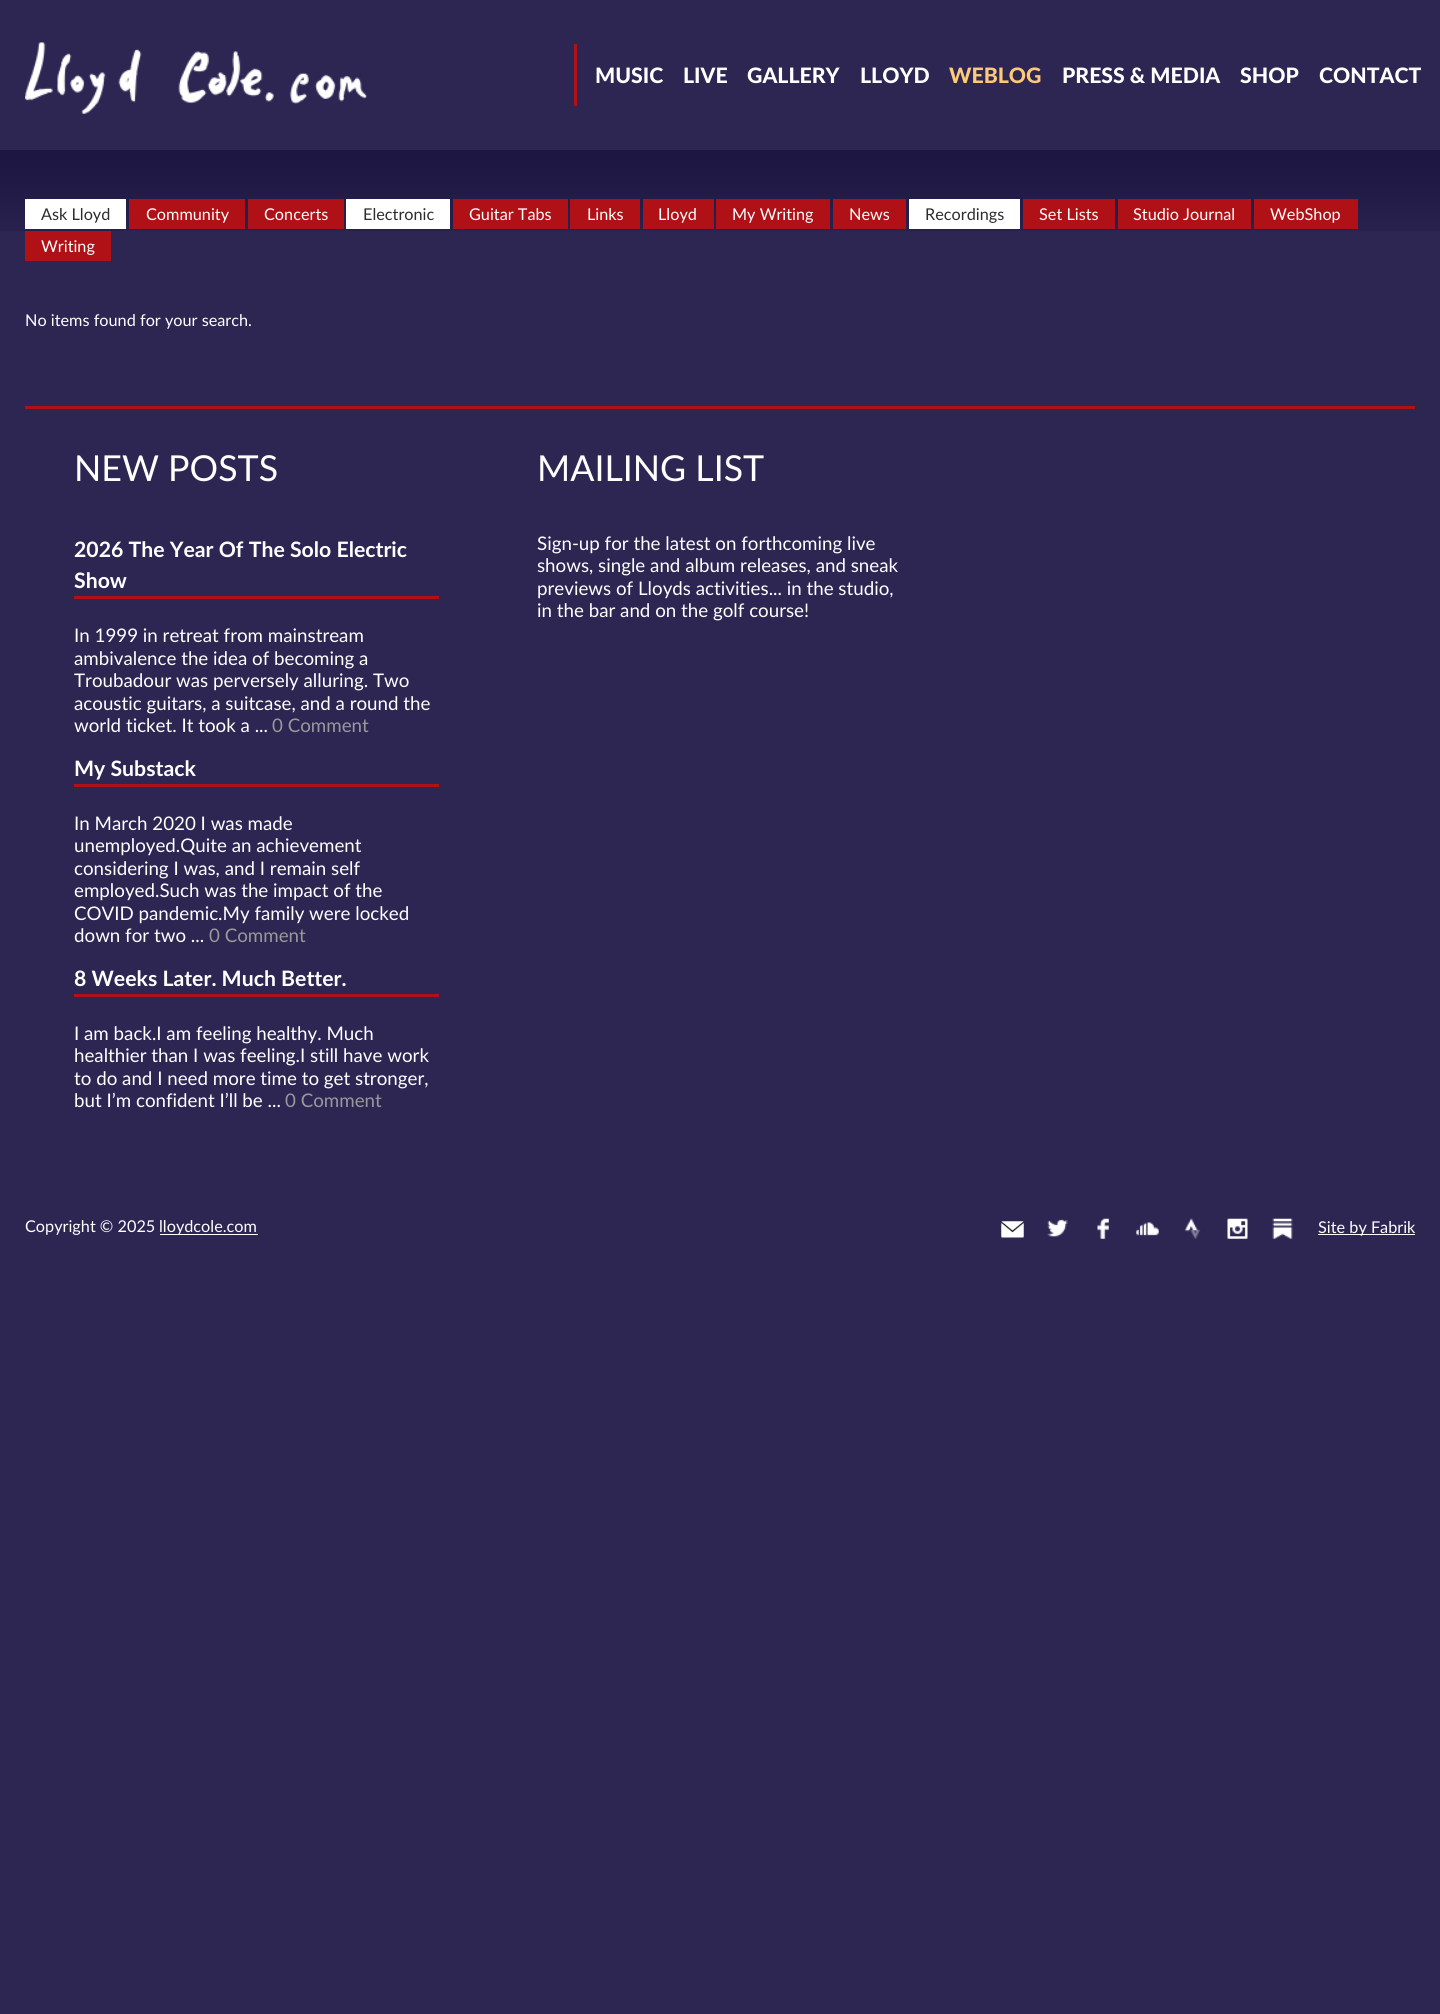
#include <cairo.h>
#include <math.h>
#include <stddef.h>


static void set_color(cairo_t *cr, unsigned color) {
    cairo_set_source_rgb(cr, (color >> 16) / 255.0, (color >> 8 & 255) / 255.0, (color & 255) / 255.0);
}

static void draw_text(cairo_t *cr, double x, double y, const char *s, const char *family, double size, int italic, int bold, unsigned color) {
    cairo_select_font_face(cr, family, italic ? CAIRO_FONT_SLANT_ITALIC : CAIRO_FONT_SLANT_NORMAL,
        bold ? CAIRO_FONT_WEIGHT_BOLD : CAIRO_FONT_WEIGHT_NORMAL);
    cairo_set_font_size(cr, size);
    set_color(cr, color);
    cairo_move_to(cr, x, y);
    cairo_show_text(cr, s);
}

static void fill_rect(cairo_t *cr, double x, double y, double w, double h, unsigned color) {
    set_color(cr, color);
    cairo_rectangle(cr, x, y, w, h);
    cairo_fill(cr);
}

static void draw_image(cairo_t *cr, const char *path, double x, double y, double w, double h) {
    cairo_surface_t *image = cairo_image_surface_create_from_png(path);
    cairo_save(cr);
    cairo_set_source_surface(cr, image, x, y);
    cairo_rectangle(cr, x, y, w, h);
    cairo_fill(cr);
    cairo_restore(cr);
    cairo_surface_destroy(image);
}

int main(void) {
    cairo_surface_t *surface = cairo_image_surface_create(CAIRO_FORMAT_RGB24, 1440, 2014);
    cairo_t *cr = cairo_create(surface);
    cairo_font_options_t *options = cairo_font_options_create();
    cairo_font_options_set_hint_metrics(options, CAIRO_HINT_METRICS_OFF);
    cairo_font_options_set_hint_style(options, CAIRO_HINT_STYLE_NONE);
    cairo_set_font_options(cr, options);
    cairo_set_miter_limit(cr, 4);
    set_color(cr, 0x2D2653);
    cairo_paint(cr);
    draw_image(cr, "assets/img1.png", 25, 42, 342, 72);
    fill_rect(cr, 574, 44, 3, 62, 0xB01116);
    draw_text(cr, 595, 83, "MUSIC", "Lato Black", 21.25, 0, 0, 0xFFFFFF);
    draw_text(cr, 683, 83, "LIVE", "Lato Black", 21.25, 0, 0, 0xFFFFFF);
    draw_text(cr, 747, 83, "GALLERY", "Lato Black", 21.25, 0, 0, 0xFFFFFF);
    draw_text(cr, 860, 83, "LLOYD", "Lato Black", 21.25, 0, 0, 0xFFFFFF);
    draw_text(cr, 949, 83, "WEBLOG", "Lato Black", 21.25, 0, 0, 0xFECA77);
    draw_text(cr, 1062, 83, "PRESS & MEDIA", "Lato Black", 21.25, 0, 0, 0xFFFFFF);
    draw_text(cr, 1240, 83, "SHOP", "Lato Black", 21.25, 0, 0, 0xFFFFFF);
    draw_text(cr, 1319, 83, "CONTACT", "Lato Black", 21.25, 0, 0, 0xFFFFFF);
    draw_image(cr, "assets/img2.png", 0, 150, 1440, 81);
    fill_rect(cr, 25, 199, 101, 30, 0xFFFFFF);
    draw_text(cr, 41, 220, "Ask Lloyd", "Lato", 16.25, 0, 0, 0x2C2C2C);
    fill_rect(cr, 129, 199, 116, 30, 0xB01116);
    draw_text(cr, 146, 220, "Community", "Lato", 16.25, 0, 0, 0xFFFFFF);
    fill_rect(cr, 248, 199, 96, 30, 0xB01116);
    draw_text(cr, 264, 220, "Concerts", "Lato", 16.25, 0, 0, 0xFFFFFF);
    fill_rect(cr, 346, 199, 104, 30, 0xFFFFFF);
    draw_text(cr, 363, 220, "Electronic", "Lato", 16.25, 0, 0, 0x2C2C2C);
    fill_rect(cr, 453, 199, 115, 30, 0xB01116);
    draw_text(cr, 469, 220, "Guitar Tabs", "Lato", 16.25, 0, 0, 0xFFFFFF);
    fill_rect(cr, 570, 199, 70, 30, 0xB01116);
    draw_text(cr, 587, 220, "Links", "Lato", 16.25, 0, 0, 0xFFFFFF);
    fill_rect(cr, 643, 199, 71, 30, 0xB01116);
    draw_text(cr, 658, 220, "Lloyd", "Lato", 16.25, 0, 0, 0xFFFFFF);
    fill_rect(cr, 716, 199, 114, 30, 0xB01116);
    draw_text(cr, 732, 220, "My Writing", "Lato", 16.25, 0, 0, 0xFFFFFF);
    fill_rect(cr, 833, 199, 73, 30, 0xB01116);
    draw_text(cr, 849, 220, "News", "Lato", 16.25, 0, 0, 0xFFFFFF);
    fill_rect(cr, 909, 199, 111, 30, 0xFFFFFF);
    draw_text(cr, 925, 220, "Recordings", "Lato", 16.25, 0, 0, 0x2C2C2C);
    fill_rect(cr, 1023, 199, 92, 30, 0xB01116);
    draw_text(cr, 1039, 220, "Set Lists", "Lato", 16.25, 0, 0, 0xFFFFFF);
    fill_rect(cr, 1118, 199, 133, 30, 0xB01116);
    draw_text(cr, 1133, 220, "Studio Journal", "Lato", 16.25, 0, 0, 0xFFFFFF);
    fill_rect(cr, 1254, 199, 104, 30, 0xB01116);
    draw_text(cr, 1270, 220, "WebShop", "Lato", 16.25, 0, 0, 0xFFFFFF);
    fill_rect(cr, 25, 231, 86, 30, 0xB01116);
    draw_text(cr, 41, 252, "Writing", "Lato", 16.25, 0, 0, 0xFFFFFF);
    draw_text(cr, 25, 326, "No items found for your search.", "Lato", 16.25, 0, 0, 0xFFFFFF);
    fill_rect(cr, 25, 406, 1390, 3, 0xB01116);
    draw_text(cr, 74, 481, "NEW POSTS", "Lato", 35.75, 0, 0, 0xFFFFFF);
    fill_rect(cr, 74, 596, 365, 3, 0xB01116);
    draw_text(cr, 74, 557, "2026 The Year Of The Solo Electric", "Lato", 21.25, 0, 1, 0xFFFFFF);
    draw_text(cr, 74, 588, "Show", "Lato", 21.25, 0, 1, 0xFFFFFF);
    draw_text(cr, 74, 642, "In 1999 in retreat from mainstream", "Lato", 18.75, 0, 0, 0xFFFFFF);
    draw_text(cr, 74, 665, "ambivalence the idea of becoming a", "Lato", 18.75, 0, 0, 0xFFFFFF);
    draw_text(cr, 74, 687, "Troubadour was perversely alluring. Two", "Lato", 18.75, 0, 0, 0xFFFFFF);
    draw_text(cr, 74, 710, "acoustic guitars, a suitcase, and a round the", "Lato", 18.75, 0, 0, 0xFFFFFF);
    draw_text(cr, 74, 732, "world ticket. It took a ...", "Lato", 18.75, 0, 0, 0xFFFFFF);
    draw_text(cr, 272, 732, "0 Comment", "Lato", 18.75, 0, 0, 0x999999);
    fill_rect(cr, 74, 784, 365, 3, 0xB01116);
    draw_text(cr, 74, 776, "My Substack", "Lato", 21.25, 0, 1, 0xFFFFFF);
    draw_text(cr, 74, 830, "In March 2020 I was made", "Lato", 18.75, 0, 0, 0xFFFFFF);
    draw_text(cr, 74, 852, "unemployed.Quite an achievement", "Lato", 18.75, 0, 0, 0xFFFFFF);
    draw_text(cr, 74, 875, "considering I was, and I remain self", "Lato", 18.75, 0, 0, 0xFFFFFF);
    draw_text(cr, 74, 897, "employed.Such was the impact of the", "Lato", 18.75, 0, 0, 0xFFFFFF);
    draw_text(cr, 74, 920, "COVID pandemic.My family were locked", "Lato", 18.75, 0, 0, 0xFFFFFF);
    draw_text(cr, 74, 942, "down for two ...", "Lato", 18.75, 0, 0, 0xFFFFFF);
    draw_text(cr, 209, 942, "0 Comment", "Lato", 18.75, 0, 0, 0x999999);
    fill_rect(cr, 74, 994, 365, 3, 0xB01116);
    draw_text(cr, 74, 986, "8 Weeks Later. Much Better.", "Lato", 21.25, 0, 1, 0xFFFFFF);
    draw_text(cr, 74, 1040, "I am back.I am feeling healthy. Much", "Lato", 18.75, 0, 0, 0xFFFFFF);
    draw_text(cr, 74, 1062, "healthier than I was feeling.I still have work", "Lato", 18.75, 0, 0, 0xFFFFFF);
    draw_text(cr, 74, 1085, "to do and I need more time to get stronger,", "Lato", 18.75, 0, 0, 0xFFFFFF);
    draw_text(cr, 74, 1107, "but I’m confident I’ll be ...", "Lato", 18.75, 0, 0, 0xFFFFFF);
    draw_text(cr, 285, 1107, "0 Comment", "Lato", 18.75, 0, 0, 0x999999);
    draw_text(cr, 537, 481, "MAILING LIST", "Lato", 35.75, 0, 0, 0xFFFFFF);
    draw_text(cr, 537, 550, "Sign-up for the latest on forthcoming live", "Lato", 18.75, 0, 0, 0xFFFFFF);
    draw_text(cr, 537, 572, "shows, single and album releases, and sneak", "Lato", 18.75, 0, 0, 0xFFFFFF);
    draw_text(cr, 537, 595, "previews of Lloyds activities... in the studio,", "Lato", 18.75, 0, 0, 0xFFFFFF);
    draw_text(cr, 537, 617, "in the bar and on the golf course!", "Lato", 18.75, 0, 0, 0xFFFFFF);
    draw_text(cr, 25, 1232, "Copyright © 2025", "Lato", 16.25, 0, 0, 0xFFFFFF);
    fill_rect(cr, 160, 1234, 98, 1, 0xFFFFFF);
    draw_text(cr, 159, 1232, "lloydcole.com", "Lato", 16.25, 0, 0, 0xFFFFFF);
    draw_image(cr, "assets/img3.png", 1001, 1221, 23, 17);
    draw_image(cr, "assets/img4.png", 1047, 1219, 21, 18);
    draw_image(cr, "assets/img5.png", 1097, 1218, 12, 21);
    draw_image(cr, "assets/img6.png", 1136, 1222, 23, 14);
    draw_image(cr, "assets/img7.png", 1184, 1218, 17, 21);
    draw_image(cr, "assets/img8.png", 1227, 1218, 21, 21);
    draw_image(cr, "assets/img9.png", 1272, 1218, 21, 21);
    fill_rect(cr, 1318, 1234, 97, 1, 0xFFFFFF);
    draw_text(cr, 1318, 1233, "Site by Fabrik", "Lato", 16.25, 0, 0, 0xFFFFFF);
    cairo_surface_write_to_png(surface, "output.png");
    cairo_font_options_destroy(options);
    cairo_destroy(cr);
    cairo_surface_destroy(surface);
    return 0;
}
